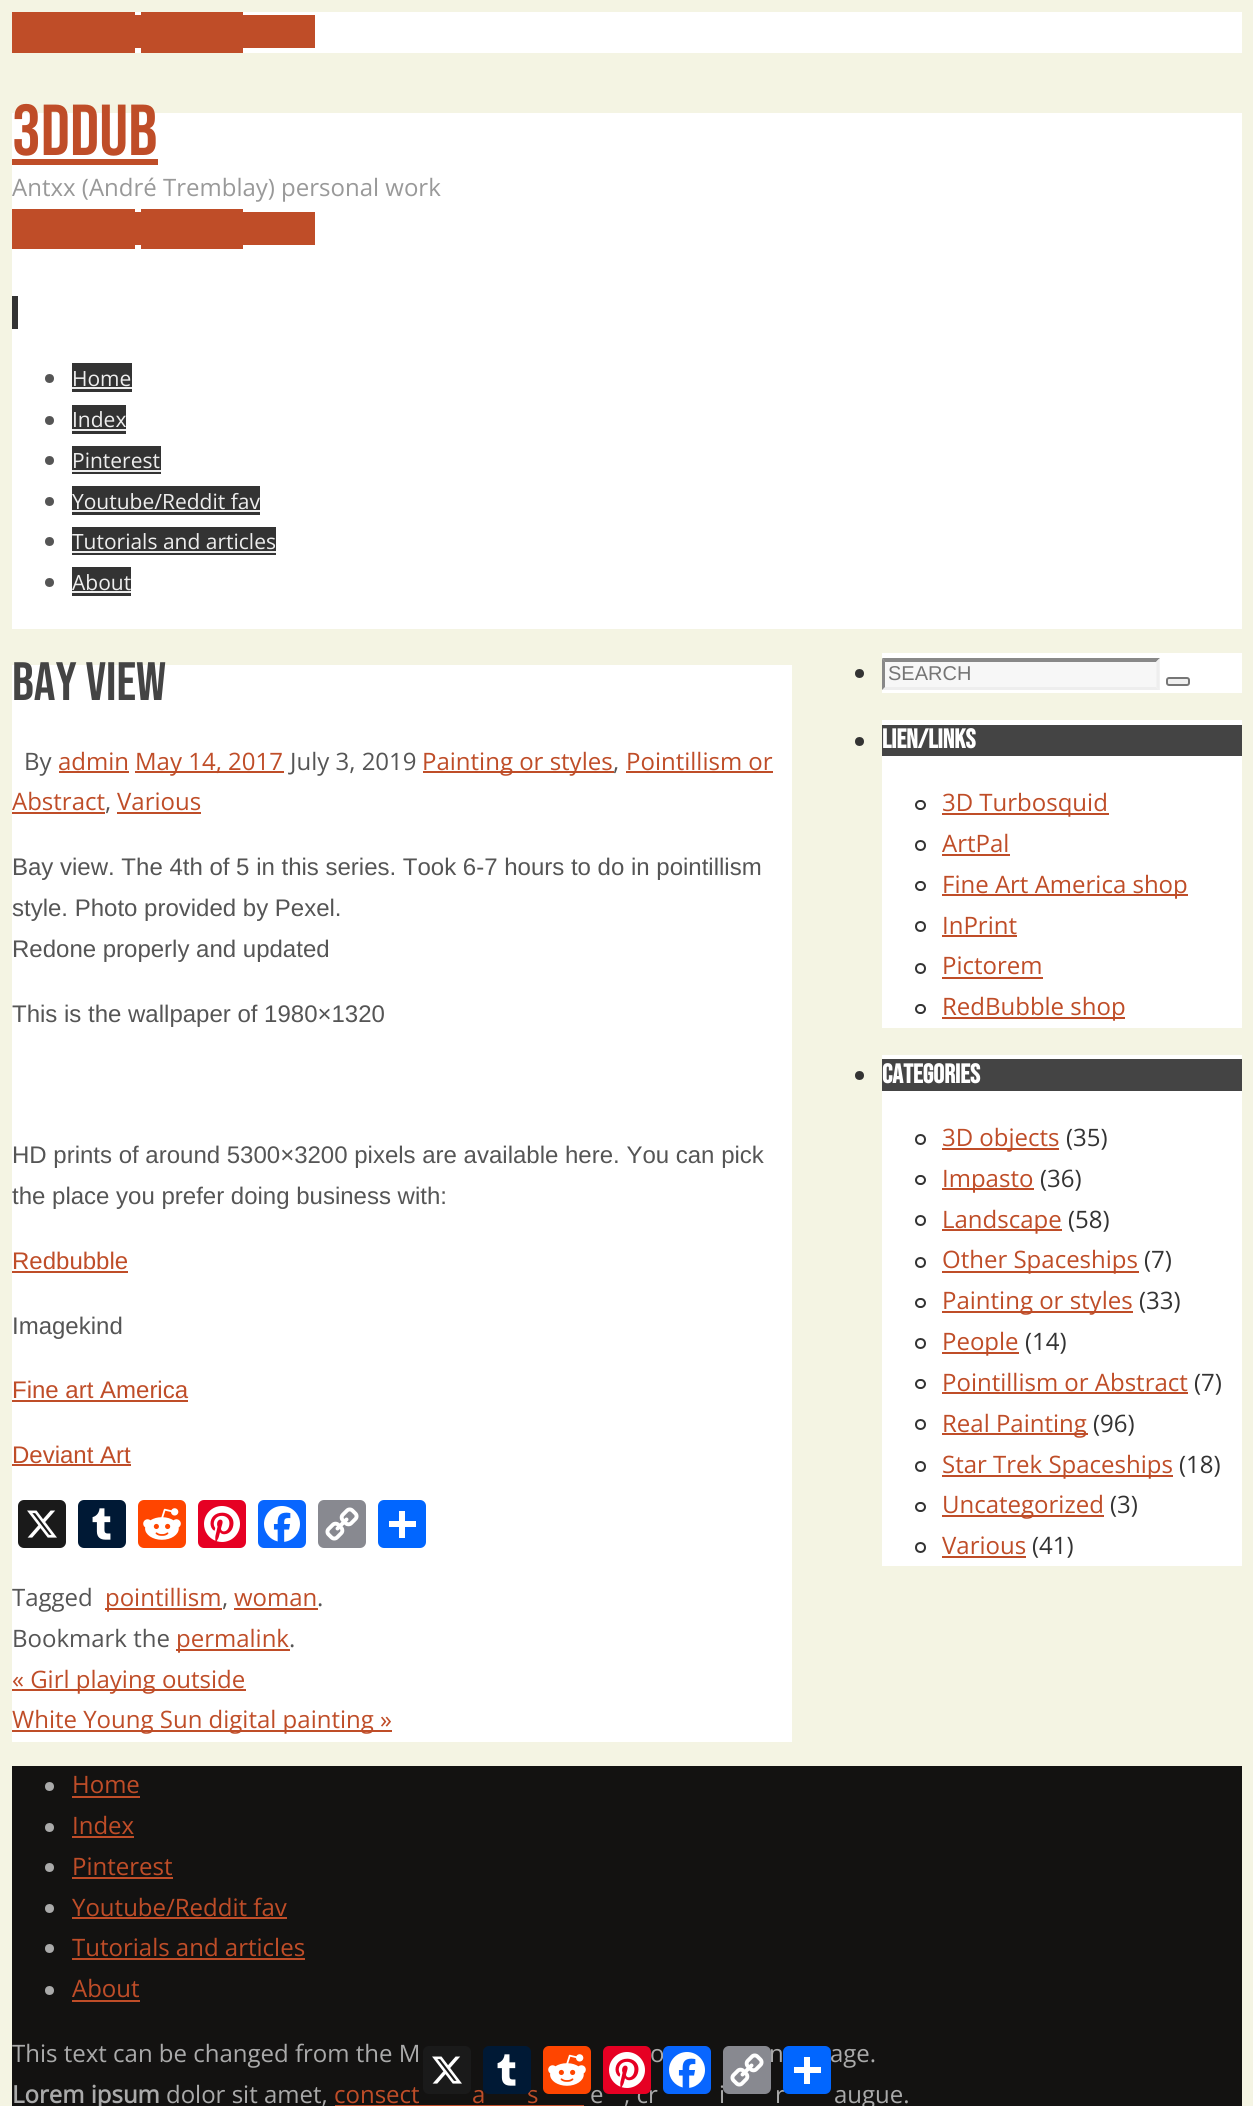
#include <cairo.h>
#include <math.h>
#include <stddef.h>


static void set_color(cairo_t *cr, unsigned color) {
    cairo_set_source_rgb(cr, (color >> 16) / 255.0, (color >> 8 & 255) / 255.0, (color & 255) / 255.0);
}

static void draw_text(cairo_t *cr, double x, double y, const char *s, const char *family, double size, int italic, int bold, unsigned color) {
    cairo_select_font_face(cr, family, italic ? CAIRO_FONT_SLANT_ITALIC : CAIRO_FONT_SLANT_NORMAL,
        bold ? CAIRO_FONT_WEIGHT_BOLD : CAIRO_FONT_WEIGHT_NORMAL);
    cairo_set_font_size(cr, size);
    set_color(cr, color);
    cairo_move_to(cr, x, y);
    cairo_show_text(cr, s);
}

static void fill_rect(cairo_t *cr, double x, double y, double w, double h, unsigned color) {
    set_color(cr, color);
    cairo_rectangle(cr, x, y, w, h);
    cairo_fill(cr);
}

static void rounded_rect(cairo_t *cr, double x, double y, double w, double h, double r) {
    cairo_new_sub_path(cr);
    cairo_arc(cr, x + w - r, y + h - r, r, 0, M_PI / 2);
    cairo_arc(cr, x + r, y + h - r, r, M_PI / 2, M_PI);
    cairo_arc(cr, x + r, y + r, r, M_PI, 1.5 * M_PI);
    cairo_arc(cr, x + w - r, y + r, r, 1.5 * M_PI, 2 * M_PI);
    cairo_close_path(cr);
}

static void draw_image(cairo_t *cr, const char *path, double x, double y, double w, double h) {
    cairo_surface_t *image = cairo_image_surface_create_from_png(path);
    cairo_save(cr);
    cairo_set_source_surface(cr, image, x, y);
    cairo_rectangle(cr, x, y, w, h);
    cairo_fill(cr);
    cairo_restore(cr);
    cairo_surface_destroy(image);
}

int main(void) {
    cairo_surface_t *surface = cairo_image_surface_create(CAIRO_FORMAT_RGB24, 1253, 2106);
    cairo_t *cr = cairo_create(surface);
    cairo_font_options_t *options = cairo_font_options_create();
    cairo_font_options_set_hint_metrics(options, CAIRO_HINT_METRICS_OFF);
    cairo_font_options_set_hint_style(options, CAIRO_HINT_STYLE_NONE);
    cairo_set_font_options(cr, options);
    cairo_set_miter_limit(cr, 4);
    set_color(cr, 0xF4F4E3);
    cairo_paint(cr);
    fill_rect(cr, 135, 12, 1107, 41, 0xFFFFFF);
    fill_rect(cr, 12, 12, 123, 41, 0xBF4D28);
    fill_rect(cr, 135, 15, 6, 33, 0xBF4D28);
    fill_rect(cr, 141, 12, 102, 41, 0xBF4D28);
    fill_rect(cr, 243, 15, 72, 33, 0xBF4D28);
    fill_rect(cr, 12, 113, 1230, 516, 0xFFFFFF);
    draw_text(cr, 12, 155, "3dDub", "Bebas Neue", 72, 0, 0, 0xBF4D28);
    fill_rect(cr, 12, 159, 146, 6, 0xBF4D28);
    draw_text(cr, 12, 196, "Antxx (André Tremblay) personal work", "Open Sans", 24, 0, 0, 0x999999);
    fill_rect(cr, 12, 209, 123, 40, 0xBF4D28);
    fill_rect(cr, 135, 212, 6, 33, 0xBF4D28);
    fill_rect(cr, 141, 209, 102, 40, 0xBF4D28);
    fill_rect(cr, 243, 212, 72, 33, 0xBF4D28);
    fill_rect(cr, 12, 296, 6, 33, 0x333333);
    set_color(cr, 0x555555);
    cairo_new_path(cr);
    cairo_arc(cr, 49.5, 378.5, 4.5, 0, 2 * M_PI);
    cairo_fill(cr);
    fill_rect(cr, 72, 363, 60, 29, 0x333333);
    draw_text(cr, 72, 386, "Home", "Open Sans", 21, 0, 0, 0xEEEEEE);
    fill_rect(cr, 72, 387, 60, 2, 0xEEEEEE);
    set_color(cr, 0x555555);
    cairo_new_path(cr);
    cairo_arc(cr, 49.5, 420.5, 4.5, 0, 2 * M_PI);
    cairo_fill(cr);
    fill_rect(cr, 72, 405, 54, 29, 0x333333);
    draw_text(cr, 72, 427, "Index", "Open Sans", 21, 0, 0, 0xEEEEEE);
    fill_rect(cr, 72, 429, 54, 2, 0xEEEEEE);
    set_color(cr, 0x555555);
    cairo_new_path(cr);
    cairo_arc(cr, 49.5, 460.5, 4.5, 0, 2 * M_PI);
    cairo_fill(cr);
    fill_rect(cr, 72, 446, 89, 28, 0x333333);
    draw_text(cr, 72, 468, "Pinterest", "Open Sans", 21, 0, 0, 0xEEEEEE);
    fill_rect(cr, 72, 470, 89, 2, 0xEEEEEE);
    set_color(cr, 0x555555);
    cairo_new_path(cr);
    cairo_arc(cr, 49.5, 501.5, 4.5, 0, 2 * M_PI);
    cairo_fill(cr);
    fill_rect(cr, 72, 486, 188, 29, 0x333333);
    draw_text(cr, 72, 509, "Youtube/Reddit fav", "Open Sans", 21, 0, 0, 0xEEEEEE);
    fill_rect(cr, 72, 510, 188, 2, 0xEEEEEE);
    set_color(cr, 0x555555);
    cairo_new_path(cr);
    cairo_arc(cr, 49.5, 541.5, 4.5, 0, 2 * M_PI);
    cairo_fill(cr);
    fill_rect(cr, 72, 527, 204, 28, 0x333333);
    draw_text(cr, 72, 549, "Tutorials and articles", "Open Sans", 21, 0, 0, 0xEEEEEE);
    fill_rect(cr, 72, 551, 204, 2, 0xEEEEEE);
    set_color(cr, 0x555555);
    cairo_new_path(cr);
    cairo_arc(cr, 49.5, 582.5, 4.5, 0, 2 * M_PI);
    cairo_fill(cr);
    fill_rect(cr, 72, 567, 59, 29, 0x333333);
    draw_text(cr, 72, 590, "About", "Open Sans", 21, 0, 0, 0xEEEEEE);
    fill_rect(cr, 72, 591, 59, 2, 0xEEEEEE);
    fill_rect(cr, 12, 665, 780, 1077, 0xFFFFFF);
    draw_text(cr, 12, 700, "Bay view", "Bebas Neue", 54, 0, 0, 0x444444);
    draw_text(cr, 24, 770, "By", "Open Sans", 24, 0, 0, 0x555555);
    draw_text(cr, 58, 770, "admin", "Open Sans", 24, 0, 0, 0xBF4D28);
    fill_rect(cr, 59, 771, 70, 2, 0xBF4D28);
    fill_rect(cr, 135, 771, 149, 2, 0xBF4D28);
    draw_text(cr, 135, 770, "May 14, 2017", "Open Sans", 24, 0, 0, 0xBF4D28);
    draw_text(cr, 290, 770, "July 3, 2019", "Open Sans", 24, 0, 0, 0x555555);
    fill_rect(cr, 423, 771, 191, 2, 0xBF4D28);
    draw_text(cr, 422, 770, "Painting or styles", "Open Sans", 24, 0, 0, 0xBF4D28);
    draw_text(cr, 613, 770, ",", "Open Sans", 24, 0, 0, 0x555555);
    fill_rect(cr, 626, 771, 147, 2, 0xBF4D28);
    draw_text(cr, 626, 770, "Pointillism or", "Open Sans", 24, 0, 0, 0xBF4D28);
    draw_text(cr, 12, 810, "Abstract", "Open Sans", 24, 0, 0, 0xBF4D28);
    draw_text(cr, 105, 810, ",", "Open Sans", 24, 0, 0, 0x555555);
    fill_rect(cr, 12, 812, 93, 2, 0xBF4D28);
    fill_rect(cr, 117, 812, 84, 2, 0xBF4D28);
    draw_text(cr, 117, 810, "Various", "Open Sans", 24, 0, 0, 0xBF4D28);
    draw_text(cr, 12, 875, "Bay view. The 4th of 5 in this series. Took 6-7 hours to do in pointillism", "Liberation Sans", 24, 0, 0, 0x555555);
    draw_text(cr, 12, 916, "style. Photo provided by Pexel.", "Liberation Sans", 24, 0, 0, 0x555555);
    draw_text(cr, 12, 957, "Redone properly and updated", "Liberation Sans", 24, 0, 0, 0x555555);
    draw_text(cr, 12, 1022, "This is the wallpaper of 1980×1320", "Liberation Sans", 24, 0, 0, 0x555555);
    draw_text(cr, 12, 1163, "HD prints of around 5300×3200 pixels are available here. You can pick", "Liberation Sans", 24, 0, 0, 0x555555);
    draw_text(cr, 12, 1204, "the place you prefer doing business with:", "Liberation Sans", 24, 0, 0, 0x555555);
    draw_text(cr, 12, 1269, "Redbubble", "Liberation Sans", 24, 0, 0, 0xBF4D28);
    fill_rect(cr, 12, 1271, 116, 2, 0xBF4D28);
    draw_text(cr, 12, 1334, "Imagekind", "Liberation Sans", 24, 0, 0, 0x555555);
    draw_text(cr, 12, 1398, "Fine art America", "Liberation Sans", 24, 0, 0, 0xBF4D28);
    fill_rect(cr, 12, 1400, 176, 2, 0xBF4D28);
    draw_text(cr, 12, 1463, "Deviant Art", "Liberation Sans", 24, 0, 0, 0xBF4D28);
    fill_rect(cr, 12, 1464, 119, 2, 0xBF4D28);
    set_color(cr, 0x1A1A1A);
    rounded_rect(cr, 18, 1500, 48, 48, 6);
    cairo_fill(cr);
    draw_image(cr, "assets/img1.png", 27, 1510, 30, 28);
    set_color(cr, 0x001935);
    rounded_rect(cr, 78, 1500, 48, 48, 6);
    cairo_fill(cr);
    draw_image(cr, "assets/img2.png", 92, 1508, 19, 32);
    set_color(cr, 0xFF4500);
    rounded_rect(cr, 138, 1500, 48, 48, 6);
    cairo_fill(cr);
    draw_image(cr, "assets/img3.png", 143, 1508, 38, 32);
    set_color(cr, 0xE60023);
    rounded_rect(cr, 198, 1500, 48, 48, 6);
    cairo_fill(cr);
    draw_image(cr, "assets/img4.png", 204, 1506, 36, 36);
    set_color(cr, 0x0866FF);
    rounded_rect(cr, 258, 1500, 48, 48, 6);
    cairo_fill(cr);
    draw_image(cr, "assets/img5.png", 264, 1506, 36, 36);
    set_color(cr, 0x888990);
    rounded_rect(cr, 318, 1500, 48, 48, 6);
    cairo_fill(cr);
    draw_image(cr, "assets/img6.png", 325, 1507, 34, 34);
    set_color(cr, 0x0166FF);
    rounded_rect(cr, 378, 1500, 48, 48, 6);
    cairo_fill(cr);
    fill_rect(cr, 399, 1511, 6, 27, 0xFFFFFF);
    fill_rect(cr, 389, 1521, 27, 6, 0xFFFFFF);
    draw_text(cr, 12, 1606, "Tagged", "Open Sans", 24, 0, 0, 0x555555);
    fill_rect(cr, 105, 1608, 117, 2, 0xBF4D28);
    draw_text(cr, 105, 1606, "pointillism", "Open Sans", 24, 0, 0, 0xBF4D28);
    draw_text(cr, 222, 1606, ",", "Open Sans", 24, 0, 0, 0x555555);
    draw_text(cr, 234, 1606, "woman", "Open Sans", 24, 0, 0, 0xBF4D28);
    fill_rect(cr, 234, 1608, 84, 2, 0xBF4D28);
    draw_text(cr, 317, 1606, ".", "Open Sans", 24, 0, 0, 0x555555);
    draw_text(cr, 12, 1647, "Bookmark the", "Open Sans", 24, 0, 0, 0x555555);
    fill_rect(cr, 176, 1649, 114, 2, 0xBF4D28);
    draw_text(cr, 176, 1647, "permalink", "Open Sans", 24, 0, 0, 0xBF4D28);
    draw_text(cr, 289, 1647, ".", "Open Sans", 24, 0, 0, 0x555555);
    fill_rect(cr, 12, 1689, 234, 2, 0xBF4D28);
    draw_text(cr, 12, 1688, "« Girl playing outside", "Open Sans", 24, 0, 0, 0xBF4D28);
    fill_rect(cr, 12, 1730, 380, 2, 0xBF4D28);
    draw_text(cr, 12, 1728, "White Young Sun digital painting »", "Open Sans", 24, 0, 0, 0xBF4D28);
    fill_rect(cr, 882, 653, 360, 40, 0xFFFFFF);
    set_color(cr, 0x333333);
    cairo_new_path(cr);
    cairo_arc(cr, 859.5, 673.5, 4.5, 0, 2 * M_PI);
    cairo_fill(cr);
    fill_rect(cr, 882, 659, 278, 31, 0xF7F7F7);
    set_color(cr, 0x888888);
    cairo_new_path(cr);
    cairo_move_to(cr, 882, 658);
    cairo_line_to(cr, 1160, 658);
    cairo_line_to(cr, 1156, 662);
    cairo_line_to(cr, 885, 662);
    cairo_close_path(cr);
    cairo_fill(cr);
    set_color(cr, 0xEEEEEE);
    cairo_new_path(cr);
    cairo_move_to(cr, 1159.5, 658.5);
    cairo_line_to(cr, 1159.5, 690);
    cairo_line_to(cr, 1156.5, 687);
    cairo_line_to(cr, 1156.5, 661.5);
    cairo_close_path(cr);
    cairo_fill(cr);
    cairo_new_path(cr);
    cairo_move_to(cr, 1160, 690);
    cairo_line_to(cr, 882, 690);
    cairo_line_to(cr, 885, 687);
    cairo_line_to(cr, 1156, 687);
    cairo_close_path(cr);
    cairo_fill(cr);
    set_color(cr, 0x888888);
    cairo_new_path(cr);
    cairo_move_to(cr, 882, 690);
    cairo_line_to(cr, 882, 658.5);
    cairo_line_to(cr, 885, 661.5);
    cairo_line_to(cr, 885, 687);
    cairo_close_path(cr);
    cairo_fill(cr);
    draw_text(cr, 888, 680, "SEARCH", "Liberation Sans", 20, 0, 0, 0x757575);
    set_color(cr, 0xEFEFEF);
    rounded_rect(cr, 1167, 678, 22, 7, 2);
    cairo_fill_preserve(cr);
    set_color(cr, 0x767676);
    cairo_stroke(cr);
    fill_rect(cr, 882, 720, 360, 308, 0xFFFFFF);
    set_color(cr, 0x333333);
    cairo_arc(cr, 859.5, 741.5, 4.5, 0, 2 * M_PI);
    cairo_fill(cr);
    fill_rect(cr, 882, 725, 360, 31, 0x444444);
    draw_text(cr, 882, 748, "Lien/Links", "Bebas Neue", 27, 0, 1, 0xFFFFFF);
    rounded_rect(cr, 916, 801, 9, 8, 4);
    set_color(cr, 0x333333);
    cairo_stroke(cr);
    fill_rect(cr, 942, 813, 167, 2, 0xBF4D28);
    draw_text(cr, 942, 811, "3D Turbosquid", "Open Sans", 24, 0, 0, 0xBF4D28);
    cairo_new_path(cr);
    cairo_arc(cr, 920.5, 845.5, 4.5, 0, 2 * M_PI);
    set_color(cr, 0x333333);
    cairo_stroke(cr);
    draw_text(cr, 942, 852, "ArtPal", "Open Sans", 24, 0, 0, 0xBF4D28);
    fill_rect(cr, 942, 854, 68, 2, 0xBF4D28);
    rounded_rect(cr, 916, 882, 9, 8, 4);
    set_color(cr, 0x333333);
    cairo_stroke(cr);
    fill_rect(cr, 942, 894, 246, 2, 0xBF4D28);
    draw_text(cr, 942, 893, "Fine Art America shop", "Open Sans", 24, 0, 0, 0xBF4D28);
    cairo_new_path(cr);
    cairo_arc(cr, 920.5, 926.5, 4.5, 0, 2 * M_PI);
    set_color(cr, 0x333333);
    cairo_stroke(cr);
    draw_text(cr, 942, 934, "InPrint", "Open Sans", 24, 0, 0, 0xBF4D28);
    fill_rect(cr, 942, 935, 75, 2, 0xBF4D28);
    cairo_new_path(cr);
    cairo_arc(cr, 920.5, 968.5, 4.5, 0, 2 * M_PI);
    set_color(cr, 0x333333);
    cairo_stroke(cr);
    draw_text(cr, 942, 974, "Pictorem", "Open Sans", 24, 0, 0, 0xBF4D28);
    fill_rect(cr, 942, 977, 101, 2, 0xBF4D28);
    rounded_rect(cr, 916, 1005, 9, 8, 4);
    set_color(cr, 0x333333);
    cairo_stroke(cr);
    fill_rect(cr, 942, 1017, 183, 2, 0xBF4D28);
    draw_text(cr, 942, 1015, "RedBubble shop", "Open Sans", 24, 0, 0, 0xBF4D28);
    fill_rect(cr, 882, 1055, 360, 511, 0xFFFFFF);
    set_color(cr, 0x333333);
    cairo_new_path(cr);
    cairo_arc(cr, 859.5, 1075.5, 4.5, 0, 2 * M_PI);
    cairo_fill(cr);
    fill_rect(cr, 882, 1059, 360, 32, 0x444444);
    draw_text(cr, 882, 1083, "Categories", "Bebas Neue", 27, 0, 1, 0xFFFFFF);
    cairo_new_path(cr);
    cairo_arc(cr, 920.5, 1139.5, 4.5, 0, 2 * M_PI);
    set_color(cr, 0x333333);
    cairo_stroke(cr);
    fill_rect(cr, 942, 1148, 117, 2, 0xBF4D28);
    draw_text(cr, 942, 1146, "3D objects", "Open Sans", 24, 0, 0, 0xBF4D28);
    draw_text(cr, 1066, 1146, "(35)", "Open Sans", 24, 0, 0, 0x333333);
    rounded_rect(cr, 916, 1176, 9, 8, 4);
    cairo_stroke(cr);
    fill_rect(cr, 942, 1188, 92, 2, 0xBF4D28);
    draw_text(cr, 942, 1187, "Impasto", "Open Sans", 24, 0, 0, 0xBF4D28);
    draw_text(cr, 1040, 1187, "(36)", "Open Sans", 24, 0, 0, 0x333333);
    cairo_new_path(cr);
    cairo_arc(cr, 920.5, 1220.5, 4.5, 0, 2 * M_PI);
    cairo_stroke(cr);
    fill_rect(cr, 942, 1229, 120, 2, 0xBF4D28);
    draw_text(cr, 942, 1228, "Landscape", "Open Sans", 24, 0, 0, 0xBF4D28);
    draw_text(cr, 1068, 1228, "(58)", "Open Sans", 24, 0, 0, 0x333333);
    cairo_new_path(cr);
    cairo_arc(cr, 920.5, 1262.5, 4.5, 0, 2 * M_PI);
    cairo_stroke(cr);
    fill_rect(cr, 942, 1271, 197, 2, 0xBF4D28);
    draw_text(cr, 942, 1268, "Other Spaceships", "Open Sans", 24, 0, 0, 0xBF4D28);
    draw_text(cr, 1144, 1268, "(7)", "Open Sans", 24, 0, 0, 0x333333);
    rounded_rect(cr, 916, 1299, 9, 8, 4);
    cairo_stroke(cr);
    fill_rect(cr, 942, 1311, 191, 2, 0xBF4D28);
    draw_text(cr, 942, 1309, "Painting or styles", "Open Sans", 24, 0, 0, 0xBF4D28);
    draw_text(cr, 1139, 1309, "(33)", "Open Sans", 24, 0, 0, 0x333333);
    cairo_new_path(cr);
    cairo_arc(cr, 920.5, 1343.5, 4.5, 0, 2 * M_PI);
    cairo_stroke(cr);
    fill_rect(cr, 942, 1352, 77, 2, 0xBF4D28);
    draw_text(cr, 942, 1350, "People", "Open Sans", 24, 0, 0, 0xBF4D28);
    draw_text(cr, 1025, 1350, "(14)", "Open Sans", 24, 0, 0, 0x333333);
    rounded_rect(cr, 916, 1380, 9, 8, 4);
    cairo_stroke(cr);
    draw_text(cr, 942, 1391, "Pointillism or Abstract", "Open Sans", 24, 0, 0, 0xBF4D28);
    fill_rect(cr, 942, 1392, 246, 2, 0xBF4D28);
    draw_text(cr, 1194, 1391, "(7)", "Open Sans", 24, 0, 0, 0x333333);
    cairo_new_path(cr);
    cairo_arc(cr, 920.5, 1424.5, 4.5, 0, 2 * M_PI);
    cairo_stroke(cr);
    fill_rect(cr, 942, 1433, 146, 2, 0xBF4D28);
    draw_text(cr, 942, 1432, "Real Painting", "Open Sans", 24, 0, 0, 0xBF4D28);
    draw_text(cr, 1093, 1432, "(96)", "Open Sans", 24, 0, 0, 0x333333);
    cairo_new_path(cr);
    cairo_arc(cr, 920.5, 1466.5, 4.5, 0, 2 * M_PI);
    cairo_stroke(cr);
    fill_rect(cr, 942, 1475, 231, 2, 0xBF4D28);
    draw_text(cr, 942, 1473, "Star Trek Spaceships", "Open Sans", 24, 0, 0, 0xBF4D28);
    draw_text(cr, 1179, 1473, "(18)", "Open Sans", 24, 0, 0, 0x333333);
    rounded_rect(cr, 916, 1503, 9, 8, 4);
    cairo_stroke(cr);
    fill_rect(cr, 942, 1515, 162, 2, 0xBF4D28);
    draw_text(cr, 942, 1513, "Uncategorized", "Open Sans", 24, 0, 0, 0xBF4D28);
    draw_text(cr, 1110, 1513, "(3)", "Open Sans", 24, 0, 0, 0x333333);
    cairo_new_path(cr);
    cairo_arc(cr, 920.5, 1547.5, 4.5, 0, 2 * M_PI);
    cairo_stroke(cr);
    draw_text(cr, 942, 1554, "Various", "Open Sans", 24, 0, 0, 0xBF4D28);
    fill_rect(cr, 942, 1556, 84, 2, 0xBF4D28);
    draw_text(cr, 1032, 1554, "(41)", "Open Sans", 24, 0, 0, 0x333333);
    fill_rect(cr, 12, 1766, 1230, 340, 0x131211);
    set_color(cr, 0xAAAAAA);
    cairo_new_path(cr);
    cairo_arc(cr, 49.5, 1786.5, 4.5, 0, 2 * M_PI);
    cairo_fill(cr);
    draw_text(cr, 72, 1793, "Home", "Open Sans", 24, 0, 0, 0xBF4D28);
    fill_rect(cr, 72, 1796, 68, 2, 0xBF4D28);
    set_color(cr, 0xAAAAAA);
    cairo_new_path(cr);
    cairo_arc(cr, 49.5, 1827.5, 4.5, 0, 2 * M_PI);
    cairo_fill(cr);
    draw_text(cr, 72, 1834, "Index", "Open Sans", 24, 0, 0, 0xBF4D28);
    fill_rect(cr, 72, 1836, 62, 2, 0xBF4D28);
    set_color(cr, 0xAAAAAA);
    cairo_new_path(cr);
    cairo_arc(cr, 49.5, 1867.5, 4.5, 0, 2 * M_PI);
    cairo_fill(cr);
    draw_text(cr, 72, 1875, "Pinterest", "Open Sans", 24, 0, 0, 0xBF4D28);
    fill_rect(cr, 72, 1877, 101, 2, 0xBF4D28);
    set_color(cr, 0xAAAAAA);
    cairo_new_path(cr);
    cairo_arc(cr, 49.5, 1908.5, 4.5, 0, 2 * M_PI);
    cairo_fill(cr);
    draw_text(cr, 72, 1916, "Youtube/Reddit fav", "Open Sans", 24, 0, 0, 0xBF4D28);
    fill_rect(cr, 72, 1917, 215, 2, 0xBF4D28);
    set_color(cr, 0xAAAAAA);
    cairo_new_path(cr);
    cairo_arc(cr, 49.5, 1948.5, 4.5, 0, 2 * M_PI);
    cairo_fill(cr);
    draw_text(cr, 72, 1956, "Tutorials and articles", "Open Sans", 24, 0, 0, 0xBF4D28);
    fill_rect(cr, 72, 1958, 233, 2, 0xBF4D28);
    set_color(cr, 0xAAAAAA);
    cairo_new_path(cr);
    cairo_arc(cr, 49.5, 1990.5, 4.5, 0, 2 * M_PI);
    cairo_fill(cr);
    draw_text(cr, 72, 1997, "About", "Open Sans", 24, 0, 0, 0xBF4D28);
    fill_rect(cr, 72, 2000, 68, 2, 0xBF4D28);
    draw_text(cr, 12, 2062, "This text can be changed from the M", "Open Sans", 24, 0, 0, 0xAAAAAA);
    draw_text(cr, 650, 2062, "o", "Open Sans", 24, 0, 0, 0xAAAAAA);
    draw_text(cr, 769, 2062, "n", "Open Sans", 24, 0, 0, 0xAAAAAA);
    draw_text(cr, 830, 2062, "age.", "Open Sans", 24, 0, 0, 0xAAAAAA);
    draw_text(cr, 12, 2103, "Lorem ipsum", "Open Sans", 24, 0, 1, 0xAAAAAA);
    draw_text(cr, 166, 2103, "dolor sit amet,", "Open Sans", 24, 0, 0, 0xAAAAAA);
    draw_text(cr, 334, 2103, "consect", "Open Sans", 24, 0, 0, 0xBF4D28);
    draw_text(cr, 472, 2103, "a", "Open Sans", 24, 0, 0, 0xBF4D28);
    draw_text(cr, 527, 2103, "s", "Open Sans", 24, 0, 0, 0xBF4D28);
    fill_rect(cr, 335, 2105, 249, 1, 0xBF4D28);
    draw_text(cr, 590, 2103, "e", "Open Sans", 24, 0, 0, 0xAAAAAA);
    draw_text(cr, 624, 2103, ", cr", "Open Sans", 24, 0, 0, 0xAAAAAA);
    draw_text(cr, 719, 2103, "i", "Open Sans", 24, 0, 0, 0xAAAAAA);
    draw_text(cr, 775, 2103, "r", "Open Sans", 24, 0, 0, 0xAAAAAA);
    draw_text(cr, 834, 2103, "augue.", "Open Sans", 24, 0, 0, 0xAAAAAA);
    set_color(cr, 0x1A1A1A);
    rounded_rect(cr, 423, 2046, 48, 48, 6);
    cairo_fill(cr);
    draw_image(cr, "assets/img1.png", 432, 2056, 30, 28);
    set_color(cr, 0x001935);
    rounded_rect(cr, 483, 2046, 48, 48, 6);
    cairo_fill(cr);
    draw_image(cr, "assets/img2.png", 497, 2054, 19, 32);
    set_color(cr, 0xFF4500);
    rounded_rect(cr, 543, 2046, 48, 48, 6);
    cairo_fill(cr);
    draw_image(cr, "assets/img3.png", 548, 2054, 38, 32);
    set_color(cr, 0xE60023);
    rounded_rect(cr, 603, 2046, 48, 48, 6);
    cairo_fill(cr);
    draw_image(cr, "assets/img4.png", 609, 2052, 36, 36);
    set_color(cr, 0x0866FF);
    rounded_rect(cr, 663, 2046, 48, 48, 6);
    cairo_fill(cr);
    draw_image(cr, "assets/img5.png", 669, 2052, 36, 36);
    set_color(cr, 0x888990);
    rounded_rect(cr, 723, 2046, 48, 48, 6);
    cairo_fill(cr);
    draw_image(cr, "assets/img6.png", 730, 2053, 34, 34);
    set_color(cr, 0x0166FF);
    rounded_rect(cr, 783, 2046, 48, 48, 6);
    cairo_fill(cr);
    fill_rect(cr, 804, 2057, 6, 27, 0xFFFFFF);
    fill_rect(cr, 794, 2067, 27, 6, 0xFFFFFF);
    cairo_surface_write_to_png(surface, "output.png");
    cairo_font_options_destroy(options);
    cairo_destroy(cr);
    cairo_surface_destroy(surface);
    return 0;
}
